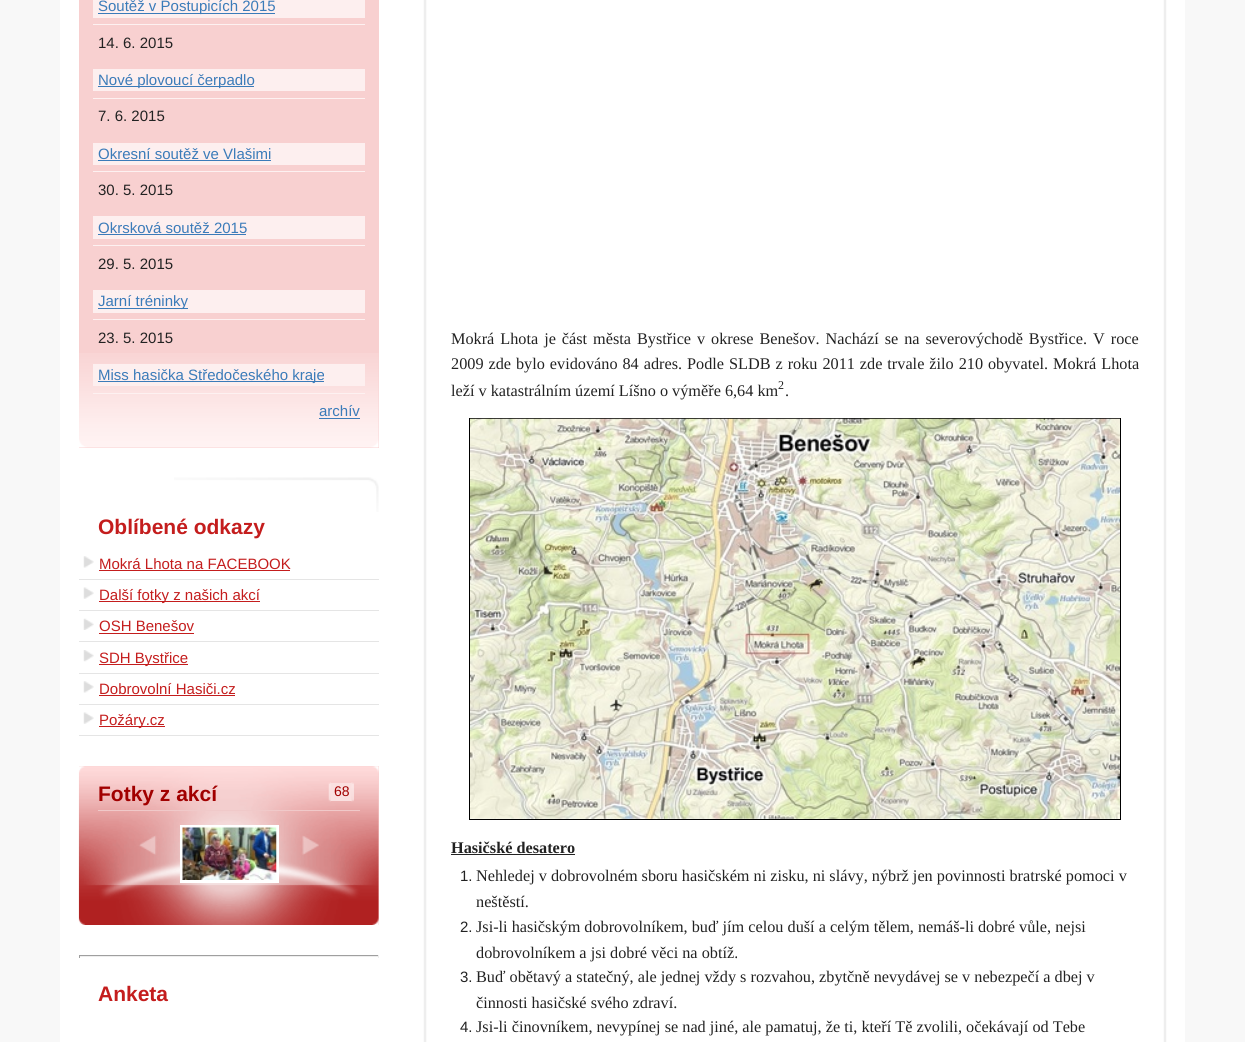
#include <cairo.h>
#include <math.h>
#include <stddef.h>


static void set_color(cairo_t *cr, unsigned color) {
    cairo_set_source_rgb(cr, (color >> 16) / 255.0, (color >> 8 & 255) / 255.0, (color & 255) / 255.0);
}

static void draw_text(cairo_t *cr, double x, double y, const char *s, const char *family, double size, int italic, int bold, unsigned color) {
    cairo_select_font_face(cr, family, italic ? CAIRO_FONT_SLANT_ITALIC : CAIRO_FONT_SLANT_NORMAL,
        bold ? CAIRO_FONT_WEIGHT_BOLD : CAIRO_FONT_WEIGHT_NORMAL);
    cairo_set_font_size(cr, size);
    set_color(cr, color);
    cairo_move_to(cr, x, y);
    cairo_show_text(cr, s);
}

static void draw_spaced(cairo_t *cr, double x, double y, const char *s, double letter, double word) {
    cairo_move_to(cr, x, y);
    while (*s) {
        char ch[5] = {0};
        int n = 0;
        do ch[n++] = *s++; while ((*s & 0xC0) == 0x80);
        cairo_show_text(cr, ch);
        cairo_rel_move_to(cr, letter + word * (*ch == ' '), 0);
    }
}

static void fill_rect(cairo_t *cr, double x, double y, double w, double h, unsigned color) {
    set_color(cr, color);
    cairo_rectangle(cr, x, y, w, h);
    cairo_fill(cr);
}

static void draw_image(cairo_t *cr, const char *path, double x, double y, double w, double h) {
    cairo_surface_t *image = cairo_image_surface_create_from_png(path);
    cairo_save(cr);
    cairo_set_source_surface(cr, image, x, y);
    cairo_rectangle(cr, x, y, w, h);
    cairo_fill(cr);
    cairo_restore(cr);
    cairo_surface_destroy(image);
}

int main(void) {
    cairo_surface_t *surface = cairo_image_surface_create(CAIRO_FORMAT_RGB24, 1245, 1042);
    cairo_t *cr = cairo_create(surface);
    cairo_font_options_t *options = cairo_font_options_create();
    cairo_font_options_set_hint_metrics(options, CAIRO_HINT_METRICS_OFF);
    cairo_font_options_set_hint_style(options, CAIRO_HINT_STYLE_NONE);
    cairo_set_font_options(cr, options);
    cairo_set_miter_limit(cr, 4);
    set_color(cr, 0xF8F8F8);
    cairo_paint(cr);
    fill_rect(cr, 60, 0, 1125, 1042, 0xFFFFFF);
    fill_rect(cr, 79, 0, 300, 448, 0xF8D0D0);
    draw_image(cr, "assets/img1.png", 79, 353, 300, 95);
    fill_rect(cr, 93, 24, 272, 1, 0xFDF1F1);
    fill_rect(cr, 93, 0, 272, 18, 0xFDEFEF);
    fill_rect(cr, 98, 13, 177, 1, 0x3B7BB9);
    draw_text(cr, 98, 11, "Soutěž v Postupicích 2015", "Liberation Sans", 15, 0, 0, 0x3B7BB9);
    fill_rect(cr, 93, 98, 272, 1, 0xFDF1F1);
    draw_text(cr, 98, 48, "14. 6. 2015", "Liberation Sans", 15, 0, 0, 0x222222);
    fill_rect(cr, 93, 69, 272, 22, 0xFDEFEF);
    fill_rect(cr, 98, 86, 156, 1, 0x3B7BB9);
    draw_text(cr, 98, 85, "Nové plovoucí čerpadlo", "Liberation Sans", 15, 0, 0, 0x3B7BB9);
    fill_rect(cr, 93, 171, 272, 1, 0xFDF1F1);
    draw_text(cr, 98, 121, "7. 6. 2015", "Liberation Sans", 15, 0, 0, 0x222222);
    fill_rect(cr, 93, 143, 272, 22, 0xFDEFEF);
    draw_text(cr, 98, 159, "Okresní soutěž ve Vlašimi", "Liberation Sans", 15, 0, 0, 0x3B7BB9);
    fill_rect(cr, 98, 160, 173, 1, 0x3B7BB9);
    fill_rect(cr, 93, 245, 272, 1, 0xFDF1F1);
    draw_text(cr, 98, 195, "30. 5. 2015", "Liberation Sans", 15, 0, 0, 0x222222);
    fill_rect(cr, 93, 216, 272, 23, 0xFDEFEF);
    draw_text(cr, 98, 233, "Okrsková soutěž 2015", "Liberation Sans", 15, 0, 0, 0x3B7BB9);
    fill_rect(cr, 98, 234, 148, 1, 0x3B7BB9);
    fill_rect(cr, 93, 319, 272, 1, 0xFDF1F1);
    draw_text(cr, 98, 269, "29. 5. 2015", "Liberation Sans", 15, 0, 0, 0x222222);
    fill_rect(cr, 93, 290, 272, 23, 0xFDEFEF);
    fill_rect(cr, 98, 308, 90, 1, 0x3B7BB9);
    draw_text(cr, 98, 306, "Jarní tréninky", "Liberation Sans", 15, 0, 0, 0x3B7BB9);
    fill_rect(cr, 93, 393, 272, 1, 0xFDF1F1);
    draw_text(cr, 98, 343, "23. 5. 2015", "Liberation Sans", 15, 0, 0, 0x222222);
    fill_rect(cr, 93, 364, 272, 22, 0xFDEFEF);
    fill_rect(cr, 98, 381, 226, 1, 0x3B7BB9);
    draw_text(cr, 98, 380, "Miss hasička Středočeského kraje", "Liberation Sans", 15, 0, 0, 0x3B7BB9);
    draw_text(cr, 319, 416, "archív", "Liberation Sans", 15, 0, 0, 0x3B7BB9);
    fill_rect(cr, 319, 418, 41, 1, 0x3B7BB9);
    draw_image(cr, "assets/img2.png", 174, 477, 205, 35);
    draw_text(cr, 98, 534, "Oblíbené odkazy", "Liberation Sans", 21, 0, 1, 0xC41D1D);
    draw_image(cr, "assets/img3.png", 83, 556, 11, 12);
    fill_rect(cr, 79, 579, 300, 1, 0xE5E5E5);
    draw_text(cr, 99, 569, "Mokrá Lhota na FACEBOOK", "Liberation Sans", 15, 0, 0, 0xC41D1D);
    fill_rect(cr, 99, 570, 191, 1, 0xC41D1D);
    draw_image(cr, "assets/img4.png", 83, 587, 11, 12);
    fill_rect(cr, 79, 610, 300, 1, 0xE5E5E5);
    fill_rect(cr, 99, 601, 161, 1, 0xC41D1D);
    draw_text(cr, 99, 600, "Další fotky z našich akcí", "Liberation Sans", 15, 0, 0, 0xC41D1D);
    draw_image(cr, "assets/img5.png", 83, 618, 11, 12);
    fill_rect(cr, 79, 641, 300, 1, 0xE5E5E5);
    draw_text(cr, 99, 631, "OSH Benešov", "Liberation Sans", 15, 0, 0, 0xC41D1D);
    fill_rect(cr, 99, 633, 95, 1, 0xC41D1D);
    draw_image(cr, "assets/img6.png", 83, 650, 11, 12);
    fill_rect(cr, 79, 673, 300, 1, 0xE5E5E5);
    fill_rect(cr, 99, 664, 89, 1, 0xC41D1D);
    draw_text(cr, 99, 663, "SDH Bystřice", "Liberation Sans", 15, 0, 0, 0xC41D1D);
    draw_image(cr, "assets/img3.png", 83, 681, 11, 12);
    fill_rect(cr, 79, 704, 300, 1, 0xE5E5E5);
    draw_text(cr, 99, 694, "Dobrovolní Hasiči.cz", "Liberation Sans", 15, 0, 0, 0xC41D1D);
    fill_rect(cr, 99, 695, 136, 1, 0xC41D1D);
    draw_image(cr, "assets/img4.png", 83, 712, 11, 12);
    fill_rect(cr, 79, 735, 300, 1, 0xE5E5E5);
    fill_rect(cr, 99, 726, 66, 1, 0xC41D1D);
    draw_text(cr, 99, 725, "Požáry.cz", "Liberation Sans", 15, 0, 0, 0xC41D1D);
    fill_rect(cr, 79, 766, 300, 159, 0xF8D0D0);
    draw_image(cr, "assets/img7.png", 78, 766, 301, 159);
    fill_rect(cr, 98, 810, 262, 1, 0xF0C9C9);
    draw_text(cr, 98, 801, "Fotky z akcí", "Liberation Sans", 21, 0, 1, 0xA10000);
    fill_rect(cr, 331, 783, 23, 18, 0xFAE0E0);
    draw_image(cr, "assets/img8.png", 328, 782, 3, 20);
    draw_text(cr, 334, 796, "68", "Liberation Sans", 14, 0, 0, 0xA10000);
    draw_image(cr, "assets/img9.png", 351, 782, 3, 20);
    cairo_rectangle(cr, 181.5, 826.5, 96, 55);
    set_color(cr, 0xFFFFFF);
    cairo_set_line_width(cr, 3);
    cairo_stroke(cr);
    draw_image(cr, "assets/img10.png", 182, 827, 95, 53);
    fill_rect(cr, 79, 955, 300, 1, 0x9F9F9F);
    fill_rect(cr, 378, 955, 1, 3, 0xEEEEEE);
    fill_rect(cr, 79, 956, 300, 1, 0xEEEEEE);
    fill_rect(cr, 79, 955, 1, 3, 0x9F9F9F);
    draw_text(cr, 98, 1001, "Anketa", "Liberation Sans", 21, 0, 1, 0xC41D1D);
    draw_image(cr, "assets/img11.png", 423, 0, 744, 1042);
    cairo_select_font_face(cr, "Liberation Serif", CAIRO_FONT_SLANT_NORMAL, CAIRO_FONT_WEIGHT_NORMAL);
    cairo_set_font_size(cr, 16.25);
    set_color(cr, 0x222222);
    draw_spaced(cr, 451, 344, "Mokrá Lhota je část města Bystřice v okrese Benešov. Nachází se na severovýchodě Bystřice. V roce", 0, 1.9);
    draw_spaced(cr, 451, 369, "2009 zde bylo evidováno 84 adres. Podle SLDB z roku 2011 zde trvale žilo 210 obyvatel. Mokrá Lhota", 0, 0.9);
    draw_text(cr, 451, 396, "leží v katastrálním území Líšno o výměře 6,64 km", "Liberation Serif", 16.25, 0, 0, 0x222222);
    draw_text(cr, 778, 389, "2", "Liberation Serif", 12, 0, 0, 0x222222);
    draw_text(cr, 785, 396, ".", "Liberation Serif", 16.25, 0, 0, 0x222222);
    cairo_rectangle(cr, 469.5, 418.5, 651, 401);
    set_color(cr, 0x000000);
    cairo_set_line_width(cr, 1);
    cairo_stroke(cr);
    draw_image(cr, "assets/img12.png", 470, 418, 650, 401);
    draw_text(cr, 451, 853, "Hasičské desatero", "Liberation Serif", 16.25, 0, 1, 0x222222);
    fill_rect(cr, 451, 854, 124, 1, 0x222222);
    draw_text(cr, 460, 881, "1.", "Liberation Sans", 15, 0, 0, 0x222222);
    draw_text(cr, 476, 881, "Nehledej v dobrovolném sboru hasičském ni zisku, ni slávy, nýbrž jen povinnosti bratrské pomoci v", "Liberation Serif", 16.25, 0, 0, 0x222222);
    draw_text(cr, 476, 907, "neštěstí.", "Liberation Serif", 16.25, 0, 0, 0x222222);
    draw_text(cr, 460, 932, "2.", "Liberation Sans", 15, 0, 0, 0x222222);
    draw_text(cr, 476, 932, "Jsi-li hasičským dobrovolníkem, buď jím celou duší a celým tělem, nemáš-li dobré vůle, nejsi", "Liberation Serif", 16.25, 0, 0, 0x222222);
    draw_text(cr, 476, 958, "dobrovolníkem a jsi dobré věci na obtíž.", "Liberation Serif", 16.25, 0, 0, 0x222222);
    draw_text(cr, 460, 982, "3.", "Liberation Sans", 15, 0, 0, 0x222222);
    draw_text(cr, 476, 982, "Buď obětavý a statečný, ale jednej vždy s rozvahou, zbytčně nevydávej se v nebezpečí a dbej v", "Liberation Serif", 16.25, 0, 0, 0x222222);
    draw_text(cr, 476, 1008, "činnosti hasičské svého zdraví.", "Liberation Serif", 16.25, 0, 0, 0x222222);
    draw_text(cr, 460, 1032, "4.", "Liberation Sans", 15, 0, 0, 0x222222);
    draw_text(cr, 476, 1032, "Jsi-li činovníkem, nevypínej se nad jiné, ale pamatuj, že ti, kteří Tě zvolili, očekávají od Tebe", "Liberation Serif", 16.25, 0, 0, 0x222222);
    cairo_surface_write_to_png(surface, "output.png");
    cairo_font_options_destroy(options);
    cairo_destroy(cr);
    cairo_surface_destroy(surface);
    return 0;
}
